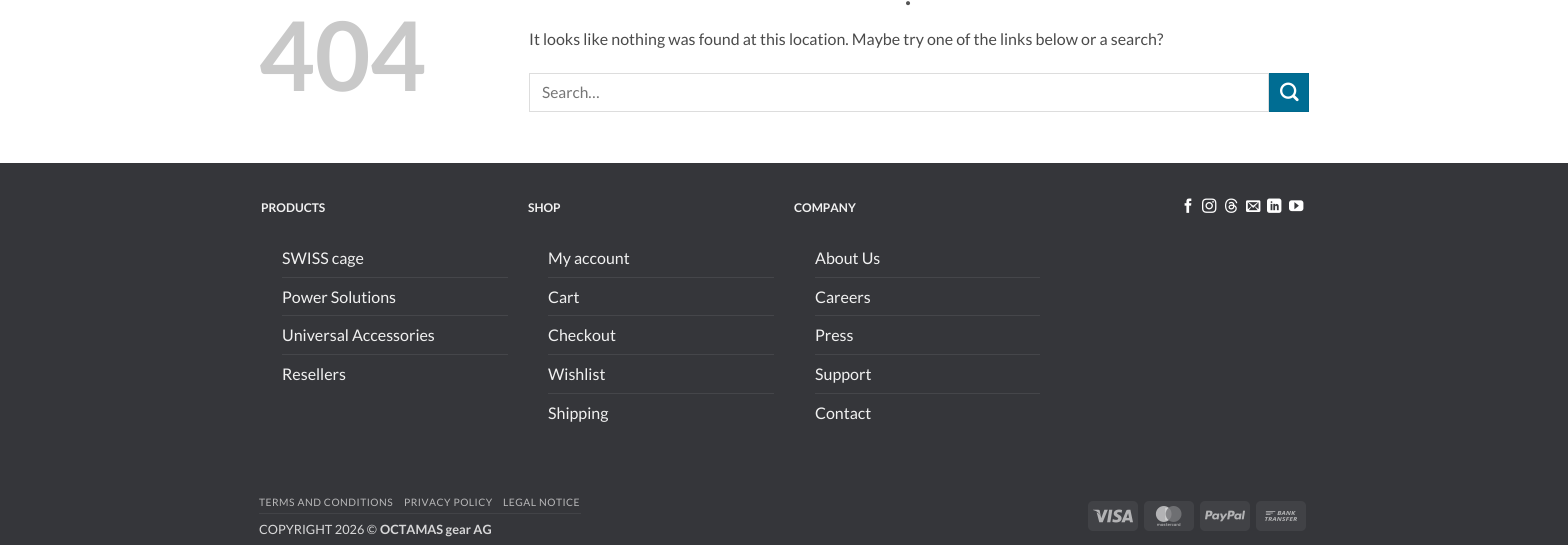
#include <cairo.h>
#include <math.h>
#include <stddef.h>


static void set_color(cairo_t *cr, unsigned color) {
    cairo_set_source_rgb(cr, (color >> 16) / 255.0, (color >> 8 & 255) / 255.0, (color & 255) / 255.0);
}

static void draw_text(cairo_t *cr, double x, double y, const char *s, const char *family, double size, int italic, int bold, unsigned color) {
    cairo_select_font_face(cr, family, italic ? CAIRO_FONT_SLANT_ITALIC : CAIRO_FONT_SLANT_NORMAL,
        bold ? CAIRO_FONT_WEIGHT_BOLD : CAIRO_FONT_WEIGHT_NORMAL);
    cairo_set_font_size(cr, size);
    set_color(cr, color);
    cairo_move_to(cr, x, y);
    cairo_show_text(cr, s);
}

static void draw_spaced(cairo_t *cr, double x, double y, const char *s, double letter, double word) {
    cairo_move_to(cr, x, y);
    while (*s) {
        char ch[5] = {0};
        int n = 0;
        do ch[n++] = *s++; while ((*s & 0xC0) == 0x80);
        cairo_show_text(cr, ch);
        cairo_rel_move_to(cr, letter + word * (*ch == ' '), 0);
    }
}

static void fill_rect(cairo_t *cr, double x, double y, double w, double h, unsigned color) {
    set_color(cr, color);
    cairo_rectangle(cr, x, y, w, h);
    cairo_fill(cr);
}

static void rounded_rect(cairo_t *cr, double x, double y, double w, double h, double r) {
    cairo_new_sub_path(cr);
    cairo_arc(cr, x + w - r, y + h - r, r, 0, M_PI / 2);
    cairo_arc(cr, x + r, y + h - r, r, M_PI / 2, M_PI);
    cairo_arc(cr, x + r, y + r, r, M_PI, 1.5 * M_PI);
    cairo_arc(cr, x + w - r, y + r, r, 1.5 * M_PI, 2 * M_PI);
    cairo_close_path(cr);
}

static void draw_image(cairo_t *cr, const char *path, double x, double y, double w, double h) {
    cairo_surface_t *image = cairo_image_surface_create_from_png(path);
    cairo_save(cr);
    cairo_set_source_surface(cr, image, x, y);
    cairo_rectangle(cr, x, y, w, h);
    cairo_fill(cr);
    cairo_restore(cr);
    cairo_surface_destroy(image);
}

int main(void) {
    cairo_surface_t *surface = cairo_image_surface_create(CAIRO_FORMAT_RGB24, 1568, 545);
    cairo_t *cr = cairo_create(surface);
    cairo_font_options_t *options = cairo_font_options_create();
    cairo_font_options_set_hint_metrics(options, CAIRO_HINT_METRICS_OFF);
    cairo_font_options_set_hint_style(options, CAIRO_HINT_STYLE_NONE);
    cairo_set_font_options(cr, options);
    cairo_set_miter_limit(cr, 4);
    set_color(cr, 0xFFFFFF);
    cairo_paint(cr);
    draw_text(cr, 259, 91, "404", "Lato", 96, 0, 1, 0xC9C9C9);
    draw_text(cr, 905, 5, ".", "Lato", 27, 0, 1, 0x555555);
    draw_text(cr, 529, 45, "It looks like nothing was found at this location. Maybe try one of the links below or a search?", "Lato", 16, 0, 0, 0x4A4A4A);
    cairo_rectangle(cr, 529.5, 73.5, 739, 38);
    set_color(cr, 0xDDDDDD);
    cairo_set_line_width(cr, 1);
    cairo_stroke(cr);
    draw_text(cr, 542, 98, "Search…", "Lato", 15.5, 0, 0, 0x757575);
    set_color(cr, 0x006D93);
    cairo_rectangle(cr, 1269.5, 73.5, 39, 38);
    cairo_fill_preserve(cr);
    set_color(cr, 0x00688C);
    cairo_stroke(cr);
    draw_image(cr, "assets/img1.png", 1280, 82, 19, 20);
    fill_rect(cr, 0, 163, 1568, 382, 0x35363A);
    draw_text(cr, 261, 212, "PRODUCTS", "Lato", 12, 0, 1, 0xF1F1F1);
    draw_text(cr, 282, 264, "SWISS cage", "Lato", 16, 0, 0, 0xF1F1F1);
    fill_rect(cr, 282, 277, 226, 1, 0x45464A);
    draw_text(cr, 282, 303, "Power Solutions", "Lato", 16, 0, 0, 0xF1F1F1);
    fill_rect(cr, 282, 315, 226, 1, 0x45464A);
    draw_text(cr, 282, 341, "Universal Accessories", "Lato", 16, 0, 0, 0xF1F1F1);
    fill_rect(cr, 282, 354, 226, 1, 0x45464A);
    draw_text(cr, 282, 380, "Resellers", "Lato", 16, 0, 0, 0xF1F1F1);
    draw_text(cr, 528, 212, "SHOP", "Lato", 12, 0, 1, 0xF1F1F1);
    draw_text(cr, 548, 264, "My account", "Lato", 16, 0, 0, 0xF1F1F1);
    fill_rect(cr, 548, 277, 226, 1, 0x45464A);
    draw_text(cr, 548, 303, "Cart", "Lato", 16, 0, 0, 0xF1F1F1);
    fill_rect(cr, 548, 315, 226, 1, 0x45464A);
    draw_text(cr, 548, 341, "Checkout", "Lato", 16, 0, 0, 0xF1F1F1);
    fill_rect(cr, 548, 354, 226, 1, 0x45464A);
    draw_text(cr, 548, 380, "Wishlist", "Lato", 16, 0, 0, 0xF1F1F1);
    fill_rect(cr, 548, 393, 226, 1, 0x45464A);
    draw_text(cr, 548, 419, "Shipping", "Lato", 16, 0, 0, 0xF1F1F1);
    draw_text(cr, 794, 212, "COMPANY", "Lato", 12, 0, 1, 0xF1F1F1);
    draw_text(cr, 815, 264, "About Us", "Lato", 16, 0, 0, 0xF1F1F1);
    fill_rect(cr, 815, 277, 225, 1, 0x45464A);
    draw_text(cr, 815, 303, "Careers", "Lato", 16, 0, 0, 0xF1F1F1);
    fill_rect(cr, 815, 315, 225, 1, 0x45464A);
    draw_text(cr, 815, 341, "Press", "Lato", 16, 0, 0, 0xF1F1F1);
    fill_rect(cr, 815, 354, 225, 1, 0x45464A);
    draw_text(cr, 815, 380, "Support", "Lato", 16, 0, 0, 0xF1F1F1);
    fill_rect(cr, 815, 393, 225, 1, 0x45464A);
    draw_text(cr, 815, 419, "Contact", "Lato", 16, 0, 0, 0xF1F1F1);
    draw_image(cr, "assets/img2.png", 1184, 198, 8, 15);
    draw_image(cr, "assets/img3.png", 1202, 198, 15, 15);
    draw_image(cr, "assets/img4.png", 1225, 198, 13, 15);
    draw_image(cr, "assets/img5.png", 1246, 200, 15, 12);
    draw_image(cr, "assets/img6.png", 1267, 198, 15, 15);
    draw_image(cr, "assets/img7.png", 1289, 200, 15, 12);
    fill_rect(cr, 259, 513, 322, 1, 0x424347);
    cairo_set_font_size(cr, 10.25);
    set_color(cr, 0xB7B7B8);
    draw_spaced(cr, 259, 506, "TERMS AND CONDITIONS", 0.5, 0);
    draw_spaced(cr, 404, 506, "PRIVACY POLICY", 0.5, 0);
    draw_spaced(cr, 503, 506, "LEGAL NOTICE", 0.5, 0);
    draw_text(cr, 259, 534, "COPYRIGHT 2026 ©", "Lato", 12.75, 0, 0, 0xD7D7D8);
    draw_text(cr, 380, 534, "OCTAMAS gear AG", "Lato", 12.75, 0, 1, 0xD7D7D8);
    set_color(cr, 0x414246);
    rounded_rect(cr, 1088, 501, 50, 30, 5);
    cairo_fill(cr);
    draw_image(cr, "assets/img8.png", 1093, 509, 40, 14);
    rounded_rect(cr, 1144, 501, 50, 30, 5);
    cairo_fill(cr);
    draw_image(cr, "assets/img9.png", 1155, 506, 27, 20);
    rounded_rect(cr, 1200, 501, 50, 30, 5);
    cairo_fill(cr);
    draw_image(cr, "assets/img10.png", 1205, 510, 40, 12);
    rounded_rect(cr, 1256, 501, 50, 30, 5);
    cairo_fill(cr);
    draw_image(cr, "assets/img11.png", 1265, 511, 32, 10);
    cairo_surface_write_to_png(surface, "output.png");
    cairo_font_options_destroy(options);
    cairo_destroy(cr);
    cairo_surface_destroy(surface);
    return 0;
}
